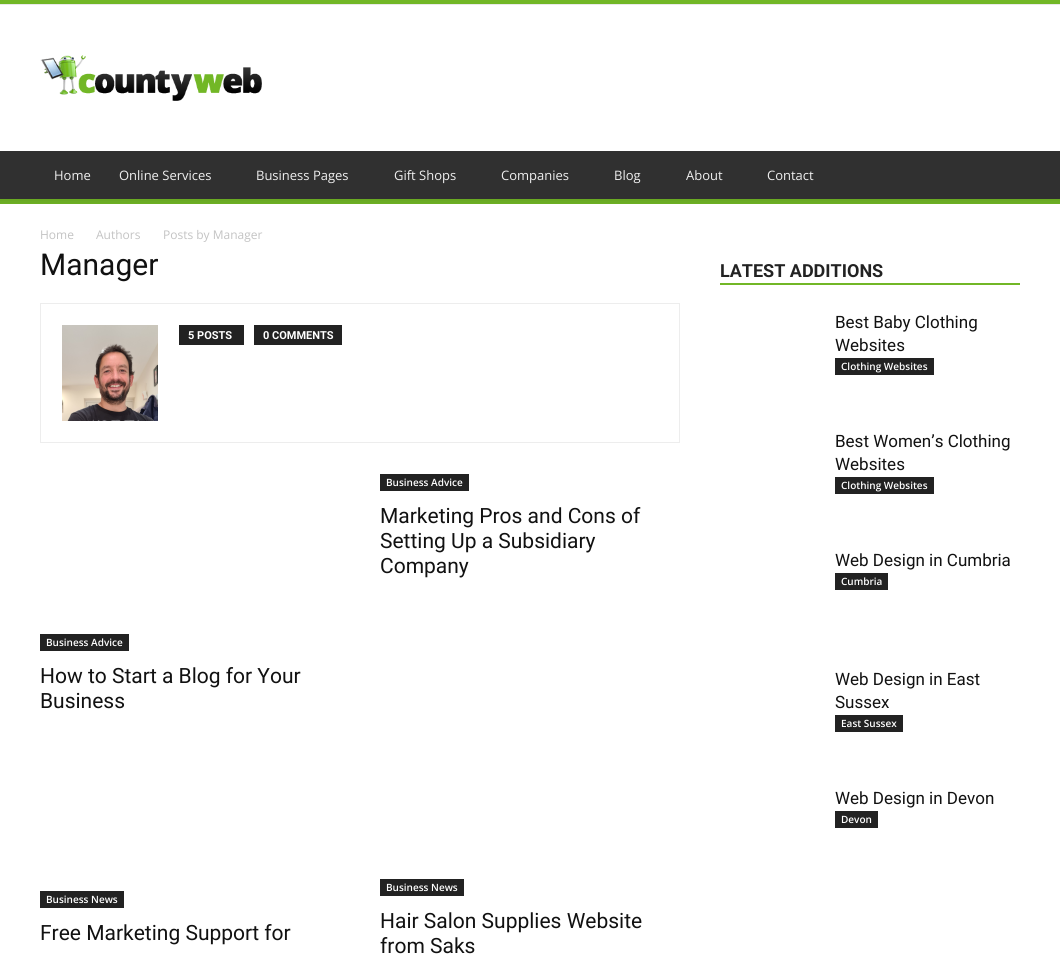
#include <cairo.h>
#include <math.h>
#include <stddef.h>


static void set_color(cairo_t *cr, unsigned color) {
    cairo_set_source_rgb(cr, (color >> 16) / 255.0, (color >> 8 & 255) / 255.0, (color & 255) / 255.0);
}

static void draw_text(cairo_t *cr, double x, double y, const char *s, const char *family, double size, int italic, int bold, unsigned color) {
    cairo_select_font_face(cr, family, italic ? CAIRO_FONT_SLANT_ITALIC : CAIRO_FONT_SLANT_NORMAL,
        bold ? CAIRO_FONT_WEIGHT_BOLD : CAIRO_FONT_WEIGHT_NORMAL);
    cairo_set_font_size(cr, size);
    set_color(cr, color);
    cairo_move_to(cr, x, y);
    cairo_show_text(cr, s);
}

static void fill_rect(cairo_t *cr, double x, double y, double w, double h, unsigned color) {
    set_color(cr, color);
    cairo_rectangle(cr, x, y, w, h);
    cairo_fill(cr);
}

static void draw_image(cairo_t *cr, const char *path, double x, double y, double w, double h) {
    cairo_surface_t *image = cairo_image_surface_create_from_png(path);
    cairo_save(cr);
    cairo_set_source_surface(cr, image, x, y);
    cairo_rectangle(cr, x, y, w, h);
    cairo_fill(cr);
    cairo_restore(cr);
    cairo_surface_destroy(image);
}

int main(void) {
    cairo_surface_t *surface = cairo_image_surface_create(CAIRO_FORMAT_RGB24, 1060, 960);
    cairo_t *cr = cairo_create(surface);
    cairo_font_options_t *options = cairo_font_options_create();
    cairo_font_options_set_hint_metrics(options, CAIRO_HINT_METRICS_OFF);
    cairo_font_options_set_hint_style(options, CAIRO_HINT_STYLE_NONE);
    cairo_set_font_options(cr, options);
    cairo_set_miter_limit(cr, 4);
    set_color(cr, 0xFFFFFF);
    cairo_paint(cr);
    fill_rect(cr, 0, 0, 1060, 4, 0x72B726);
    fill_rect(cr, 0, 4, 1060, 1, 0xE9E9E9);
    draw_image(cr, "assets/img1.png", 40, 55, 222, 46);
    fill_rect(cr, 0, 151, 1060, 48, 0x303030);
    draw_text(cr, 54, 180, "Home", "Open Sans", 13, 0, 0, 0xEFEFEF);
    draw_text(cr, 119, 180, "Online Services", "Open Sans", 13, 0, 0, 0xEFEFEF);
    draw_text(cr, 256, 180, "Business Pages", "Open Sans", 13, 0, 0, 0xEFEFEF);
    draw_text(cr, 394, 180, "Gift Shops", "Open Sans", 13, 0, 0, 0xEFEFEF);
    draw_text(cr, 501, 180, "Companies", "Open Sans", 13, 0, 0, 0xEFEFEF);
    draw_text(cr, 614, 180, "Blog", "Open Sans", 13, 0, 0, 0xEFEFEF);
    draw_text(cr, 686, 180, "About", "Open Sans", 13, 0, 0, 0xEFEFEF);
    draw_text(cr, 767, 180, "Contact", "Open Sans", 13, 0, 0, 0xEFEFEF);
    fill_rect(cr, 0, 199, 1060, 5, 0x72B726);
    draw_image(cr, "assets/img2.png", 0, 199, 1060, 5);
    draw_text(cr, 40, 239, "Home", "Open Sans", 12, 0, 0, 0xC3C3C3);
    draw_text(cr, 96, 239, "Authors", "Open Sans", 12, 0, 0, 0xC3C3C3);
    draw_text(cr, 163, 239, "Posts by Manager", "Open Sans", 12, 0, 0, 0xC3C3C3);
    draw_text(cr, 40, 275, "Manager", "Roboto", 30, 0, 0, 0x111111);
    cairo_rectangle(cr, 40.5, 303.5, 639, 139);
    set_color(cr, 0xEDEDED);
    cairo_set_line_width(cr, 1);
    cairo_stroke(cr);
    draw_image(cr, "assets/img3.png", 62, 325, 96, 96);
    fill_rect(cr, 179, 325, 65, 20, 0x222222);
    draw_text(cr, 188, 339, "5 POSTS", "Roboto", 11, 0, 1, 0xFFFFFF);
    fill_rect(cr, 254, 325, 88, 20, 0x222222);
    draw_text(cr, 263, 339, "0 COMMENTS", "Roboto", 11, 0, 1, 0xFFFFFF);
    fill_rect(cr, 380, 474, 89, 17, 0x222222);
    draw_text(cr, 386, 486, "Business Advice", "Open Sans SemiBold", 10, 0, 0, 0xFFFFFF);
    draw_text(cr, 380, 523, "Marketing Pros and Cons of", "Roboto", 21, 0, 0, 0x111111);
    draw_text(cr, 380, 548, "Setting Up a Subsidiary", "Roboto", 21, 0, 0, 0x111111);
    draw_text(cr, 380, 573, "Company", "Roboto", 21, 0, 0, 0x111111);
    fill_rect(cr, 40, 634, 89, 17, 0x222222);
    draw_text(cr, 46, 646, "Business Advice", "Open Sans SemiBold", 10, 0, 0, 0xFFFFFF);
    draw_text(cr, 40, 683, "How to Start a Blog for Your", "Roboto", 21, 0, 0, 0x111111);
    draw_text(cr, 40, 708, "Business", "Roboto", 21, 0, 0, 0x111111);
    fill_rect(cr, 40, 891, 84, 17, 0x222222);
    draw_text(cr, 46, 903, "Business News", "Open Sans SemiBold", 10, 0, 0, 0xFFFFFF);
    draw_text(cr, 40, 940, "Free Marketing Support for", "Roboto", 21, 0, 0, 0x111111);
    fill_rect(cr, 380, 879, 84, 17, 0x222222);
    draw_text(cr, 386, 891, "Business News", "Open Sans SemiBold", 10, 0, 0, 0xFFFFFF);
    draw_text(cr, 380, 928, "Hair Salon Supplies Website", "Roboto", 21, 0, 0, 0x111111);
    draw_text(cr, 380, 953, "from Saks", "Roboto", 21, 0, 0, 0x111111);
    fill_rect(cr, 720, 283, 300, 2, 0x72B726);
    draw_text(cr, 720, 277, "LATEST ADDITIONS", "Roboto", 18, 0, 1, 0x222222);
    draw_text(cr, 835, 328, "Best Baby Clothing", "Roboto", 17, 0, 0, 0x111111);
    draw_text(cr, 835, 351, "Websites", "Roboto", 17, 0, 0, 0x111111);
    fill_rect(cr, 835, 358, 99, 17, 0x222222);
    draw_text(cr, 841, 370, "Clothing Websites", "Open Sans SemiBold", 10, 0, 0, 0xFFFFFF);
    draw_text(cr, 835, 447, "Best Women’s Clothing", "Roboto", 17, 0, 0, 0x111111);
    draw_text(cr, 835, 470, "Websites", "Roboto", 17, 0, 0, 0x111111);
    fill_rect(cr, 835, 477, 99, 17, 0x222222);
    draw_text(cr, 841, 489, "Clothing Websites", "Open Sans SemiBold", 10, 0, 0, 0xFFFFFF);
    draw_text(cr, 835, 566, "Web Design in Cumbria", "Roboto", 17, 0, 0, 0x111111);
    fill_rect(cr, 835, 573, 53, 17, 0x222222);
    draw_text(cr, 841, 585, "Cumbria", "Open Sans SemiBold", 10, 0, 0, 0xFFFFFF);
    draw_text(cr, 835, 685, "Web Design in East", "Roboto", 17, 0, 0, 0x111111);
    draw_text(cr, 835, 708, "Sussex", "Roboto", 17, 0, 0, 0x111111);
    fill_rect(cr, 835, 715, 68, 17, 0x222222);
    draw_text(cr, 841, 727, "East Sussex", "Open Sans SemiBold", 10, 0, 0, 0xFFFFFF);
    draw_text(cr, 835, 804, "Web Design in Devon", "Roboto", 17, 0, 0, 0x111111);
    fill_rect(cr, 835, 811, 43, 17, 0x222222);
    draw_text(cr, 841, 823, "Devon", "Open Sans SemiBold", 10, 0, 0, 0xFFFFFF);
    cairo_surface_write_to_png(surface, "output.png");
    cairo_font_options_destroy(options);
    cairo_destroy(cr);
    cairo_surface_destroy(surface);
    return 0;
}
